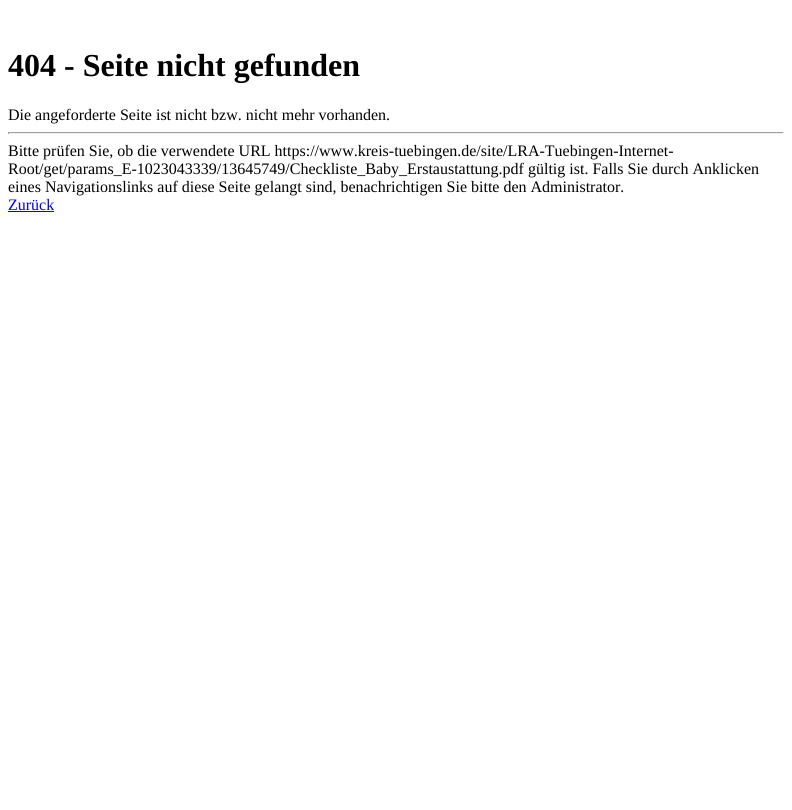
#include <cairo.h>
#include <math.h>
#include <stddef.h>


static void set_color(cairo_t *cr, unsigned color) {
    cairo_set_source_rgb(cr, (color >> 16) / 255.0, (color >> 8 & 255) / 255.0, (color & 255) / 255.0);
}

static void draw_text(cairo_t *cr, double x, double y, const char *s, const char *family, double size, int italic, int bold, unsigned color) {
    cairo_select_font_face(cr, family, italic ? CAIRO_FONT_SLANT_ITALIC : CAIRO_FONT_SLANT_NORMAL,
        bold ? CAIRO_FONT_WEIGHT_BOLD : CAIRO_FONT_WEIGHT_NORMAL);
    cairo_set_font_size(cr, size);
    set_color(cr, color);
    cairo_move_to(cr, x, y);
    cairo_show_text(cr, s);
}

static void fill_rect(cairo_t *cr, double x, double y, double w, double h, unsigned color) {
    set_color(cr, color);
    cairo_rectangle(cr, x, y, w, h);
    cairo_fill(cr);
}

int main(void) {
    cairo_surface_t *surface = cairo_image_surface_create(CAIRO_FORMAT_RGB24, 792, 810);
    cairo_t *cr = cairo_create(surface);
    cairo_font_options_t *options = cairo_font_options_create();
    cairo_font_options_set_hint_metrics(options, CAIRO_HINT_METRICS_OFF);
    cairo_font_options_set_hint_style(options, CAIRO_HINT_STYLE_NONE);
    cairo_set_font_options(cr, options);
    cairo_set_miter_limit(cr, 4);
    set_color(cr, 0xFFFFFF);
    cairo_paint(cr);
    draw_text(cr, 8, 76, "404 - Seite nicht gefunden", "Liberation Serif", 32, 0, 1, 0x000000);
    draw_text(cr, 8, 120, "Die angeforderte Seite ist nicht bzw. nicht mehr vorhanden.", "Liberation Serif", 16, 0, 0, 0x000000);
    fill_rect(cr, 8, 132, 776, 1, 0x9F9F9F);
    fill_rect(cr, 783, 132, 1, 2, 0xEEEEEE);
    fill_rect(cr, 8, 133, 776, 1, 0xEEEEEE);
    fill_rect(cr, 8, 132, 1, 2, 0x9F9F9F);
    draw_text(cr, 8, 156, "Bitte prüfen Sie, ob die verwendete URL https://www.kreis-tuebingen.de/site/LRA-Tuebingen-Internet-", "Liberation Serif", 16, 0, 0, 0x000000);
    draw_text(cr, 8, 174, "Root/get/params_E-1023043339/13645749/Checkliste_Baby_Erstaustattung.pdf gültig ist. Falls Sie durch Anklicken", "Liberation Serif", 16, 0, 0, 0x000000);
    draw_text(cr, 8, 192, "eines Navigationslinks auf diese Seite gelangt sind, benachrichtigen Sie bitte den Administrator.", "Liberation Serif", 16, 0, 0, 0x000000);
    draw_text(cr, 8, 210, "Zurück", "Liberation Serif", 16, 0, 0, 0x0000EE);
    fill_rect(cr, 8, 211, 46, 1, 0x0000EE);
    cairo_surface_write_to_png(surface, "output.png");
    cairo_font_options_destroy(options);
    cairo_destroy(cr);
    cairo_surface_destroy(surface);
    return 0;
}
